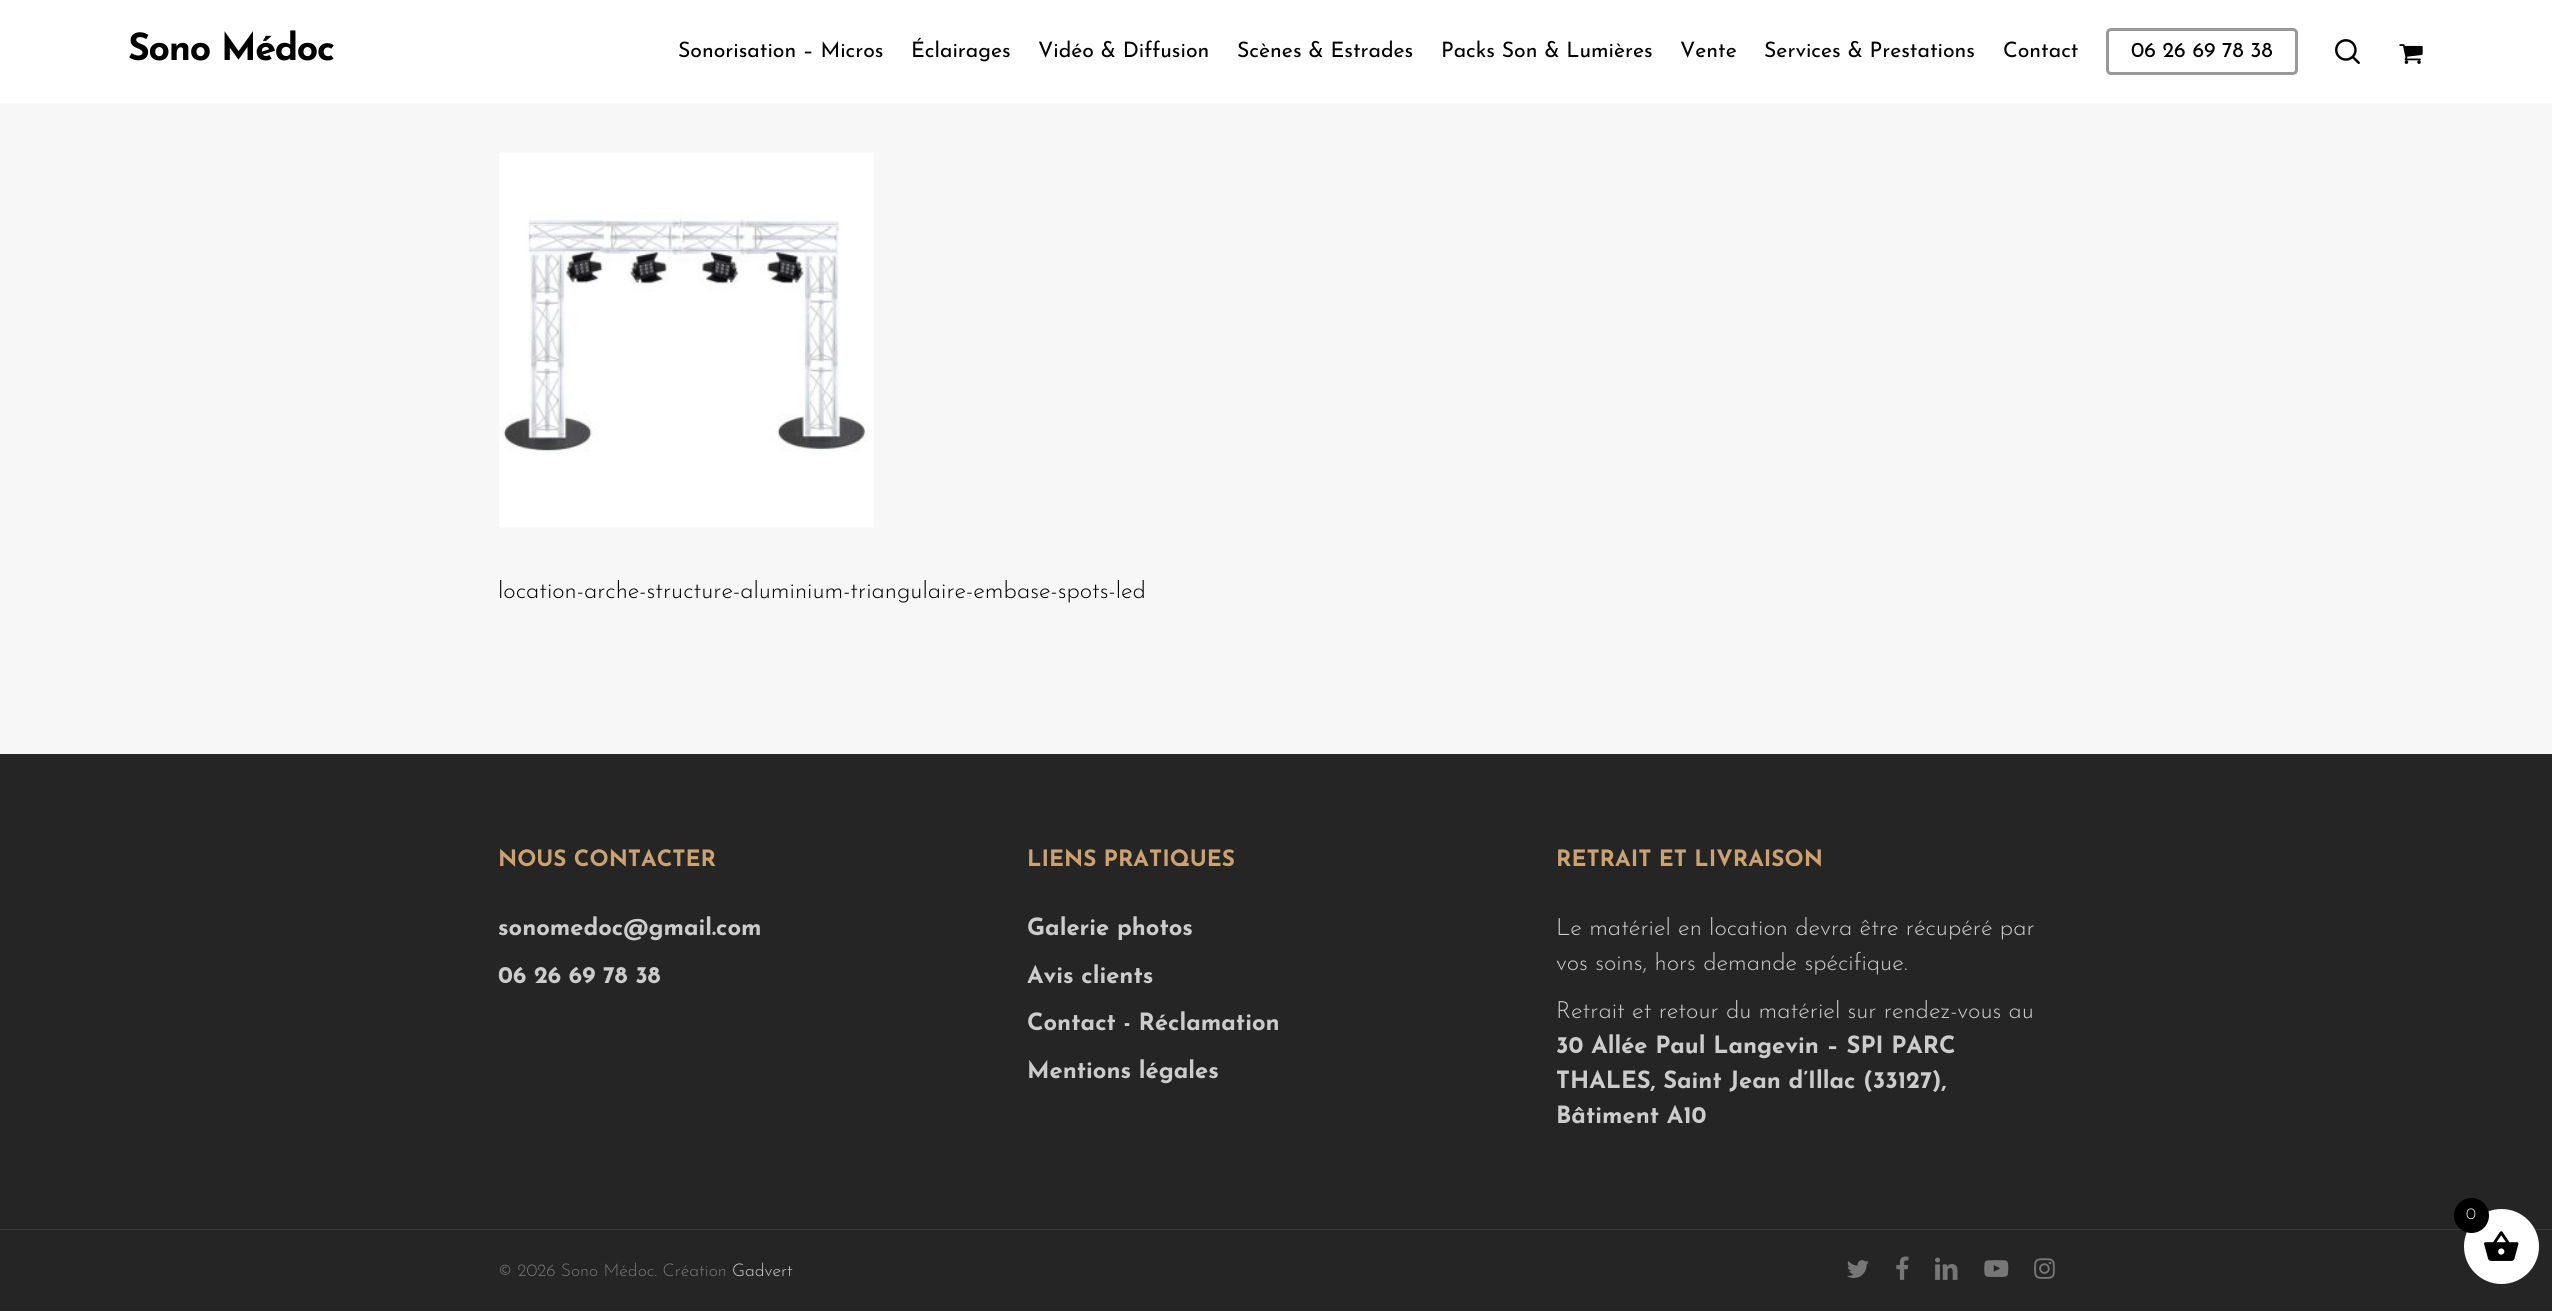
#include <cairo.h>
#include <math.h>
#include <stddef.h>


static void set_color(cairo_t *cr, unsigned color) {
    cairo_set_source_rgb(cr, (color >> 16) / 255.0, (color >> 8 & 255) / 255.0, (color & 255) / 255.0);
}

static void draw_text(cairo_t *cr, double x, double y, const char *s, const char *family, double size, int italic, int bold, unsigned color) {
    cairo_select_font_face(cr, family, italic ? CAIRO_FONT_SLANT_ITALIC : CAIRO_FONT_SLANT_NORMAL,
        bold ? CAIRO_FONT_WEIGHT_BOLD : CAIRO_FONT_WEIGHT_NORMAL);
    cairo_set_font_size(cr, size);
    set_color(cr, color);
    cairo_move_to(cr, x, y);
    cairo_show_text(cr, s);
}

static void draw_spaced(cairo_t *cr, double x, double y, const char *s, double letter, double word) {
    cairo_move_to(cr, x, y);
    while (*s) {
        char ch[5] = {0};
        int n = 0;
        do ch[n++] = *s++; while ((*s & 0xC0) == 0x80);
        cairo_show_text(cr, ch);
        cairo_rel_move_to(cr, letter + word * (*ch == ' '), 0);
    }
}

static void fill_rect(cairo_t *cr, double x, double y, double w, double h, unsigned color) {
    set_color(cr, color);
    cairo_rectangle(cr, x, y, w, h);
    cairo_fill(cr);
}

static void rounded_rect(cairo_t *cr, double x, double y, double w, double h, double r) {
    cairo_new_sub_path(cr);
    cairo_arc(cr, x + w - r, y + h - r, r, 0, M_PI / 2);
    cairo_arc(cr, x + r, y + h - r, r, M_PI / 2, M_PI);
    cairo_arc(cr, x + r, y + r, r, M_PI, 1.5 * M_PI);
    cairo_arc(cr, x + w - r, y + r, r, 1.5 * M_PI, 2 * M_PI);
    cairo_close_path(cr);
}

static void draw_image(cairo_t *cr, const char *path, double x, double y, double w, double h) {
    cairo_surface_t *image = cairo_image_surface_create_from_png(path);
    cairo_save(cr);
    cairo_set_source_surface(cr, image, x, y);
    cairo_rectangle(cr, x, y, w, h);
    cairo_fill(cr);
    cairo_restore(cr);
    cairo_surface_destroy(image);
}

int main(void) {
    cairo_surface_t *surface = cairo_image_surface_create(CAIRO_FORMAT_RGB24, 2552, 1311);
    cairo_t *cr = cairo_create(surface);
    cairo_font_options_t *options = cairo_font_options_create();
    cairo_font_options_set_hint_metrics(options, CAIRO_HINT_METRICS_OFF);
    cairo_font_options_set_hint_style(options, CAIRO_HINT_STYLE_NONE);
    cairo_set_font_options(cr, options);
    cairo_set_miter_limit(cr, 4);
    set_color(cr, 0xF7F7F7);
    cairo_paint(cr);
    fill_rect(cr, 0, 0, 2552, 103, 0xFFFFFF);
    cairo_select_font_face(cr, "Josefin Sans", CAIRO_FONT_SLANT_NORMAL, CAIRO_FONT_WEIGHT_BOLD);
    cairo_set_font_size(cr, 37.5);
    set_color(cr, 0x000000);
    draw_spaced(cr, 128, 60, "Sono Médoc", -1.25, 0);
    draw_text(cr, 678, 57, "Sonorisation – Micros", "Josefin Sans", 21.25, 0, 0, 0x000000);
    draw_text(cr, 911, 57, "Éclairages", "Josefin Sans", 21.25, 0, 0, 0x000000);
    draw_text(cr, 1038, 57, "Vidéo & Diffusion", "Josefin Sans", 21.25, 0, 0, 0x000000);
    draw_text(cr, 1237, 57, "Scènes & Estrades", "Josefin Sans", 21.25, 0, 0, 0x000000);
    draw_text(cr, 1441, 57, "Packs Son & Lumières", "Josefin Sans", 21.25, 0, 0, 0x000000);
    draw_text(cr, 1680, 57, "Vente", "Josefin Sans", 21.25, 0, 0, 0x000000);
    draw_text(cr, 1764, 57, "Services & Prestations", "Josefin Sans", 21.25, 0, 0, 0x000000);
    draw_text(cr, 2003, 57, "Contact", "Josefin Sans", 21.25, 0, 0, 0x000000);
    rounded_rect(cr, 2107.5, 29.5, 189, 44, 3.5);
    set_color(cr, 0x999999);
    cairo_set_line_width(cr, 3);
    cairo_stroke(cr);
    draw_text(cr, 2131, 57, "06 26 69 78 38", "Josefin Sans", 21.25, 0, 0, 0x000000);
    draw_image(cr, "assets/img1.png", 2335, 39, 25, 25);
    draw_image(cr, "assets/img2.png", 2399, 44, 24, 20);
    draw_image(cr, "assets/img3.png", 499, 152, 375, 376);
    draw_text(cr, 498, 598, "location-arche-structure-aluminium-triangulaire-embase-spots-led", "Josefin Sans Light", 23.75, 0, 0, 0x000000);
    fill_rect(cr, 0, 754, 2552, 557, 0x252525);
    draw_text(cr, 498, 866, "NOUS CONTACTER", "Josefin Sans", 22.5, 0, 1, 0xCBA36E);
    draw_text(cr, 498, 935, "sonomedoc@gmail.com", "Josefin Sans", 23.75, 0, 1, 0xCCCCCC);
    draw_text(cr, 498, 983, "06 26 69 78 38", "Josefin Sans", 23.75, 0, 1, 0xCCCCCC);
    draw_text(cr, 1027, 866, "LIENS PRATIQUES", "Josefin Sans", 22.5, 0, 1, 0xCBA36E);
    draw_text(cr, 1027, 935, "Galerie photos", "Josefin Sans", 23.75, 0, 1, 0xCCCCCC);
    draw_text(cr, 1027, 983, "Avis clients", "Josefin Sans", 23.75, 0, 1, 0xCCCCCC);
    draw_text(cr, 1027, 1030, "Contact - Réclamation", "Josefin Sans", 23.75, 0, 1, 0xCCCCCC);
    draw_text(cr, 1027, 1078, "Mentions légales", "Josefin Sans", 23.75, 0, 1, 0xCCCCCC);
    draw_text(cr, 1556, 866, "RETRAIT ET LIVRAISON", "Josefin Sans", 22.5, 0, 1, 0xCBA36E);
    draw_text(cr, 1556, 935, "Le matériel en location devra être récupéré par", "Josefin Sans Light", 23.75, 0, 0, 0xCCCCCC);
    draw_text(cr, 1556, 970, "vos soins, hors demande spécifique.", "Josefin Sans Light", 23.75, 0, 0, 0xCCCCCC);
    draw_text(cr, 1556, 1018, "Retrait et retour du matériel sur rendez-vous au", "Josefin Sans Light", 23.75, 0, 0, 0xCCCCCC);
    draw_text(cr, 1556, 1053, "30 Allée Paul Langevin – SPI PARC", "Josefin Sans", 23.75, 0, 1, 0xCCCCCC);
    draw_text(cr, 1556, 1088, "THALES, Saint Jean d’Illac (33127),", "Josefin Sans", 23.75, 0, 1, 0xCCCCCC);
    draw_text(cr, 1556, 1123, "Bâtiment A10", "Josefin Sans", 23.75, 0, 1, 0xCCCCCC);
    fill_rect(cr, 0, 1229, 2552, 1, 0x3B3B3B);
    draw_text(cr, 498, 1276, "© 2026 Sono Médoc. Création", "Josefin Sans Light", 17.5, 0, 0, 0x777777);
    draw_text(cr, 732, 1276, "Gadvert", "Josefin Sans Light", 17.5, 0, 0, 0xCCCCCC);
    draw_image(cr, "assets/img4.png", 1847, 1260, 22, 18);
    draw_image(cr, "assets/img5.png", 1896, 1256, 13, 24);
    draw_image(cr, "assets/img6.png", 1935, 1257, 23, 23);
    draw_image(cr, "assets/img7.png", 1984, 1260, 25, 17);
    draw_image(cr, "assets/img8.png", 2034, 1258, 21, 21);
    set_color(cr, 0xFFFFFF);
    cairo_arc(cr, 2501.5, 1246.5, 37.5, 0, 2 * M_PI);
    cairo_fill(cr);
    draw_image(cr, "assets/img9.png", 2484, 1231, 35, 30);
    set_color(cr, 0x000000);
    cairo_arc(cr, 2471.5, 1215.5, 17.5, 0, 2 * M_PI);
    cairo_fill(cr);
    draw_text(cr, 2466, 1219, "0", "Josefin Sans Light", 16, 0, 0, 0xFFFFFF);
    cairo_surface_write_to_png(surface, "output.png");
    cairo_font_options_destroy(options);
    cairo_destroy(cr);
    cairo_surface_destroy(surface);
    return 0;
}
